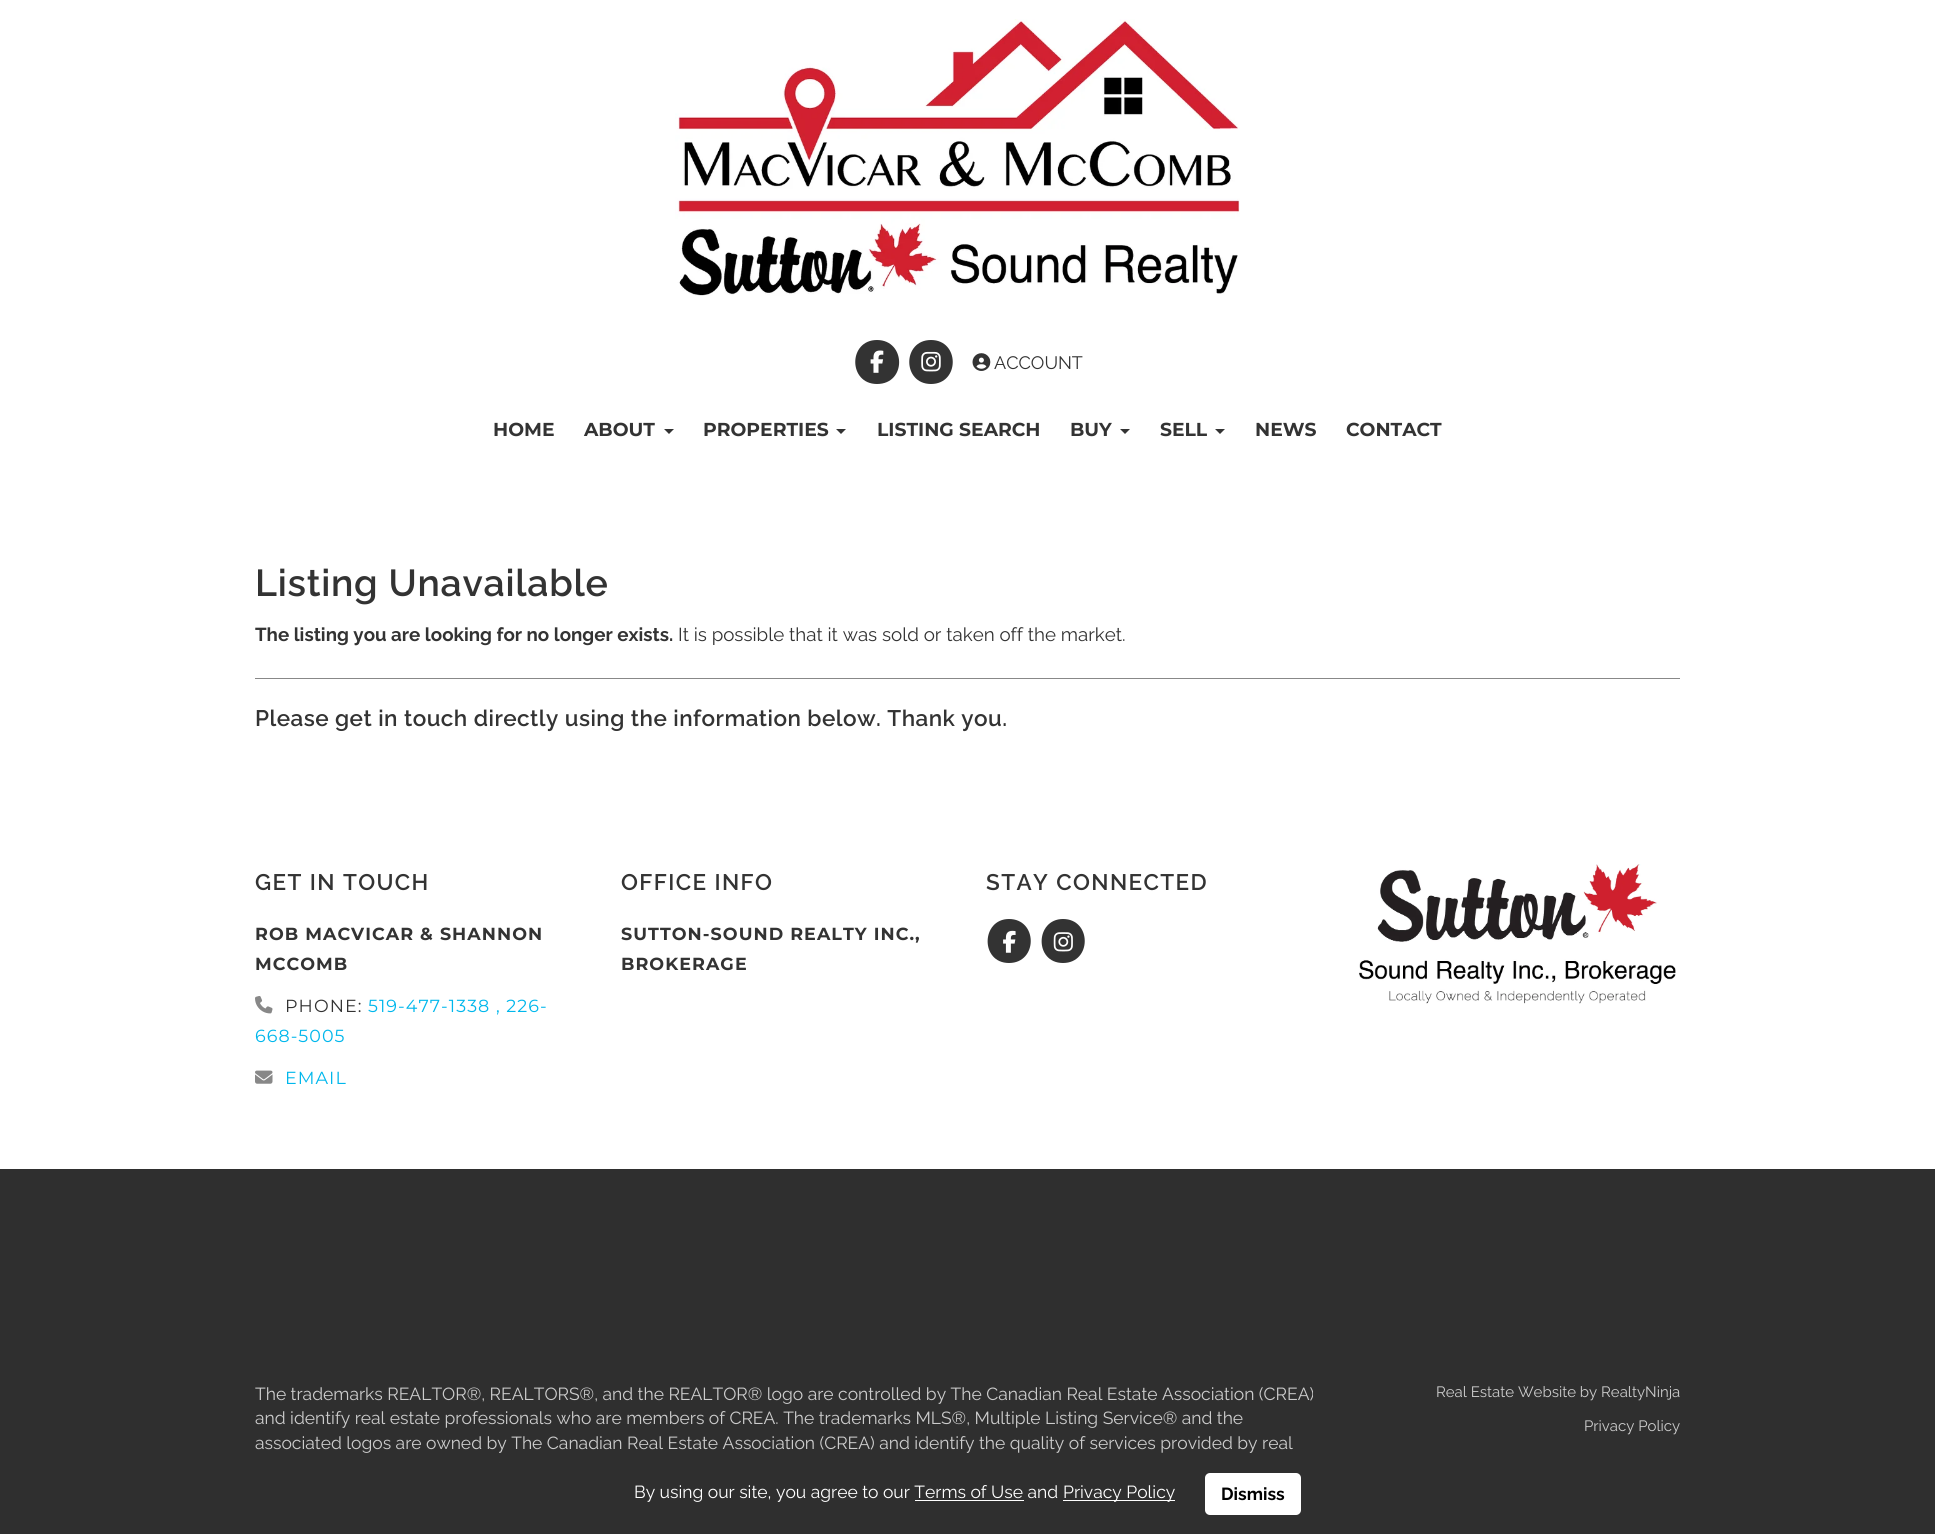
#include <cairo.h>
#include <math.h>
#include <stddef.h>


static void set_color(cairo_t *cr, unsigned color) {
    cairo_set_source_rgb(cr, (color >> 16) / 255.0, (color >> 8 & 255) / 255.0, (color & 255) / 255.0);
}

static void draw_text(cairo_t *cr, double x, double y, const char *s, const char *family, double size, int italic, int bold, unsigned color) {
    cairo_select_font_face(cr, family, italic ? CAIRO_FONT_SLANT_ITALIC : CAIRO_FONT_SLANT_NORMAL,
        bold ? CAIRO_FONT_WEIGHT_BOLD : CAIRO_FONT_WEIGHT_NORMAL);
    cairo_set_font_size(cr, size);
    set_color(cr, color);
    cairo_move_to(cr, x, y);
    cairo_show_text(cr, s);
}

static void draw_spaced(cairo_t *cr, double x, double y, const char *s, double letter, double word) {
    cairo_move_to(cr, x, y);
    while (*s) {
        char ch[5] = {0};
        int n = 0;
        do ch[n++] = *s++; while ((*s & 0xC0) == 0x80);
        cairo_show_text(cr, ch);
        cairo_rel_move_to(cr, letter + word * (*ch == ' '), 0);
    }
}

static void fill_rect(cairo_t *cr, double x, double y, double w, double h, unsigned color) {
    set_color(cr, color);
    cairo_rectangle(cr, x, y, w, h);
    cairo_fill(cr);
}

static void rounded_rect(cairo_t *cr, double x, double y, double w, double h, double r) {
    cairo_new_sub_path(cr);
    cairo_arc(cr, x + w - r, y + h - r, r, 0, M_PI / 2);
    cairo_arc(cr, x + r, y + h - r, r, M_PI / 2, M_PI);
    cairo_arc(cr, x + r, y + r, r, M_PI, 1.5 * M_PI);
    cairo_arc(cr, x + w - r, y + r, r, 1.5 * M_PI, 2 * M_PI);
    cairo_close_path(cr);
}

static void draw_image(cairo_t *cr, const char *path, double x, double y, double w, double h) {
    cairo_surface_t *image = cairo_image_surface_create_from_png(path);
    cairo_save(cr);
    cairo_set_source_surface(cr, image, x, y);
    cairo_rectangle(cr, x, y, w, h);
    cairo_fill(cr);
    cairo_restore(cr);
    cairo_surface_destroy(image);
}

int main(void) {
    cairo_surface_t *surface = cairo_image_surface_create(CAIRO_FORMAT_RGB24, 1935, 1534);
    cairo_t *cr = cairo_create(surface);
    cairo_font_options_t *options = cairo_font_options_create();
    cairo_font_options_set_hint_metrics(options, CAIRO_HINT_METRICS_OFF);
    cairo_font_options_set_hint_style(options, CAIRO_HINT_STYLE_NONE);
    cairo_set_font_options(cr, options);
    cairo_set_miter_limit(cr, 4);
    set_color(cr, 0xFFFFFF);
    cairo_paint(cr);
    draw_image(cr, "assets/img1.png", 675, 19, 565, 277);
    set_color(cr, 0x333333);
    cairo_new_path(cr);
    cairo_move_to(cr, 877, 384);
    cairo_curve_to(cr, 907, 384, 906, 340, 877, 340);
    cairo_curve_to(cr, 848, 340, 848, 384, 877, 384);
    cairo_close_path(cr);
    cairo_fill(cr);
    draw_image(cr, "assets/img2.png", 870, 350, 14, 23);
    cairo_new_path(cr);
    cairo_move_to(cr, 931, 384);
    cairo_curve_to(cr, 960, 384, 960, 340, 931, 340);
    cairo_curve_to(cr, 902, 340, 902, 384, 931, 384);
    cairo_close_path(cr);
    cairo_fill(cr);
    draw_image(cr, "assets/img3.png", 921, 351, 20, 21);
    draw_image(cr, "assets/img4.png", 972, 353, 19, 18);
    draw_text(cr, 994, 369, "ACCOUNT", "Raleway", 18, 0, 0, 0x333333);
    draw_text(cr, 493, 436, "HOME", "Montserrat", 18.75, 0, 1, 0x333333);
    draw_text(cr, 584, 436, "ABOUT", "Montserrat", 18.75, 0, 1, 0x333333);
    cairo_new_path(cr);
    cairo_move_to(cr, 664, 429);
    cairo_line_to(cr, 674, 429);
    cairo_line_to(cr, 669, 434);
    cairo_close_path(cr);
    cairo_fill(cr);
    draw_text(cr, 703, 436, "PROPERTIES", "Montserrat", 18.75, 0, 1, 0x333333);
    cairo_new_path(cr);
    cairo_move_to(cr, 836, 429);
    cairo_line_to(cr, 846, 429);
    cairo_line_to(cr, 841, 434);
    cairo_close_path(cr);
    cairo_fill(cr);
    draw_text(cr, 877, 436, "LISTING SEARCH", "Montserrat", 18.75, 0, 1, 0x333333);
    draw_text(cr, 1070, 436, "BUY", "Montserrat", 18.75, 0, 1, 0x333333);
    cairo_new_path(cr);
    cairo_move_to(cr, 1120, 429);
    cairo_line_to(cr, 1130, 429);
    cairo_line_to(cr, 1125, 434);
    cairo_close_path(cr);
    cairo_fill(cr);
    draw_text(cr, 1160, 436, "SELL", "Montserrat", 18.75, 0, 1, 0x333333);
    cairo_new_path(cr);
    cairo_move_to(cr, 1215, 429);
    cairo_line_to(cr, 1225, 429);
    cairo_line_to(cr, 1220, 434);
    cairo_close_path(cr);
    cairo_fill(cr);
    draw_text(cr, 1255, 436, "NEWS", "Montserrat", 18.75, 0, 1, 0x333333);
    draw_text(cr, 1346, 436, "CONTACT", "Montserrat", 18.75, 0, 1, 0x333333);
    cairo_select_font_face(cr, "Raleway SemiBold", CAIRO_FONT_SLANT_NORMAL, CAIRO_FONT_WEIGHT_NORMAL);
    cairo_set_font_size(cr, 37.5);
    draw_spaced(cr, 255, 596, "Listing Unavailable", 0.75, 0);
    draw_text(cr, 255, 641, "The listing you are looking for no longer exists.", "Raleway", 18.75, 0, 1, 0x333333);
    draw_text(cr, 678, 641, "It is possible that it was sold or taken off the market.", "Raleway", 18.75, 0, 0, 0x333333);
    fill_rect(cr, 255, 678, 1425, 1, 0x888888);
    cairo_select_font_face(cr, "Raleway SemiBold", CAIRO_FONT_SLANT_NORMAL, CAIRO_FONT_WEIGHT_NORMAL);
    cairo_set_font_size(cr, 22.5);
    set_color(cr, 0x333333);
    draw_spaced(cr, 255, 726, "Please get in touch directly using the information below. Thank you.", 0.45, 0);
    draw_spaced(cr, 255, 890, "GET IN TOUCH", 1.4, 0);
    cairo_select_font_face(cr, "Montserrat", CAIRO_FONT_SLANT_NORMAL, CAIRO_FONT_WEIGHT_BOLD);
    cairo_set_font_size(cr, 17.5);
    draw_spaced(cr, 255, 940, "ROB MACVICAR & SHANNON", 1.05, 0);
    draw_spaced(cr, 255, 970, "MCCOMB", 1.05, 0);
    draw_image(cr, "assets/img5.png", 255, 996, 18, 18);
    cairo_select_font_face(cr, "Montserrat", CAIRO_FONT_SLANT_NORMAL, CAIRO_FONT_WEIGHT_NORMAL);
    draw_spaced(cr, 285, 1012, "PHONE:", 1.05, 0);
    set_color(cr, 0x00B7EC);
    draw_spaced(cr, 368, 1012, "519-477-1338 , 226-", 1.05, 0);
    draw_spaced(cr, 255, 1042, "668-5005", 1.05, 0);
    draw_image(cr, "assets/img6.png", 255, 1070, 18, 14);
    draw_spaced(cr, 285, 1084, "EMAIL", 1.05, 0);
    cairo_select_font_face(cr, "Raleway SemiBold", CAIRO_FONT_SLANT_NORMAL, CAIRO_FONT_WEIGHT_NORMAL);
    cairo_set_font_size(cr, 22.5);
    set_color(cr, 0x333333);
    draw_spaced(cr, 621, 890, "OFFICE INFO", 1.4, 0);
    cairo_select_font_face(cr, "Montserrat", CAIRO_FONT_SLANT_NORMAL, CAIRO_FONT_WEIGHT_BOLD);
    cairo_set_font_size(cr, 17.5);
    draw_spaced(cr, 621, 940, "SUTTON-SOUND REALTY INC.,", 1.05, 0);
    draw_spaced(cr, 621, 970, "BROKERAGE", 1.05, 0);
    cairo_select_font_face(cr, "Raleway SemiBold", CAIRO_FONT_SLANT_NORMAL, CAIRO_FONT_WEIGHT_NORMAL);
    cairo_set_font_size(cr, 22.5);
    draw_spaced(cr, 986, 890, "STAY CONNECTED", 1.4, 0);
    cairo_new_path(cr);
    cairo_move_to(cr, 1009, 963);
    cairo_curve_to(cr, 1038, 963, 1038, 919, 1009, 919);
    cairo_curve_to(cr, 981, 919, 980, 963, 1009, 963);
    cairo_close_path(cr);
    cairo_fill(cr);
    draw_image(cr, "assets/img7.png", 1003, 930, 13, 23);
    cairo_new_path(cr);
    cairo_move_to(cr, 1063, 963);
    cairo_curve_to(cr, 1092, 963, 1092, 919, 1063, 919);
    cairo_curve_to(cr, 1035, 919, 1034, 963, 1063, 963);
    cairo_close_path(cr);
    cairo_fill(cr);
    draw_image(cr, "assets/img8.png", 1053, 932, 20, 20);
    draw_image(cr, "assets/img9.png", 1359, 864, 317, 140);
    fill_rect(cr, 0, 1169, 1935, 365, 0x2F2F2F);
    draw_text(cr, 255, 1400, "The trademarks REALTOR®, REALTORS®, and the REALTOR® logo are controlled by The Canadian Real Estate Association (CREA)", "Raleway", 17.5, 0, 0, 0xCCCCCC);
    draw_text(cr, 255, 1424, "and identify real estate professionals who are members of CREA. The trademarks MLS®, Multiple Listing Service® and the", "Raleway", 17.5, 0, 0, 0xCCCCCC);
    draw_text(cr, 255, 1449, "associated logos are owned by The Canadian Real Estate Association (CREA) and identify the quality of services provided by real", "Raleway", 17.5, 0, 0, 0xCCCCCC);
    draw_text(cr, 1436, 1397, "Real Estate Website by RealtyNinja", "Raleway", 15, 0, 0, 0xCCCCCC);
    draw_text(cr, 1584, 1431, "Privacy Policy", "Raleway", 15, 0, 0, 0xCCCCCC);
    draw_text(cr, 634, 1498, "By using our site, you agree to our Terms of Use and", "Raleway", 17.5, 0, 0, 0xFFFFFF);
    fill_rect(cr, 1063, 1500, 112, 1, 0xFFFFFF);
    draw_text(cr, 1063, 1498, "Privacy Policy", "Raleway", 17.5, 0, 0, 0xFFFFFF);
    rounded_rect(cr, 1205, 1473, 96, 42, 5);
    cairo_fill(cr);
    draw_text(cr, 1221, 1500, "Dismiss", "Raleway", 17.5, 0, 1, 0x000000);
    fill_rect(cr, 915, 1500, 109, 1, 0xFFFFFF);
    cairo_surface_write_to_png(surface, "output.png");
    cairo_font_options_destroy(options);
    cairo_destroy(cr);
    cairo_surface_destroy(surface);
    return 0;
}
